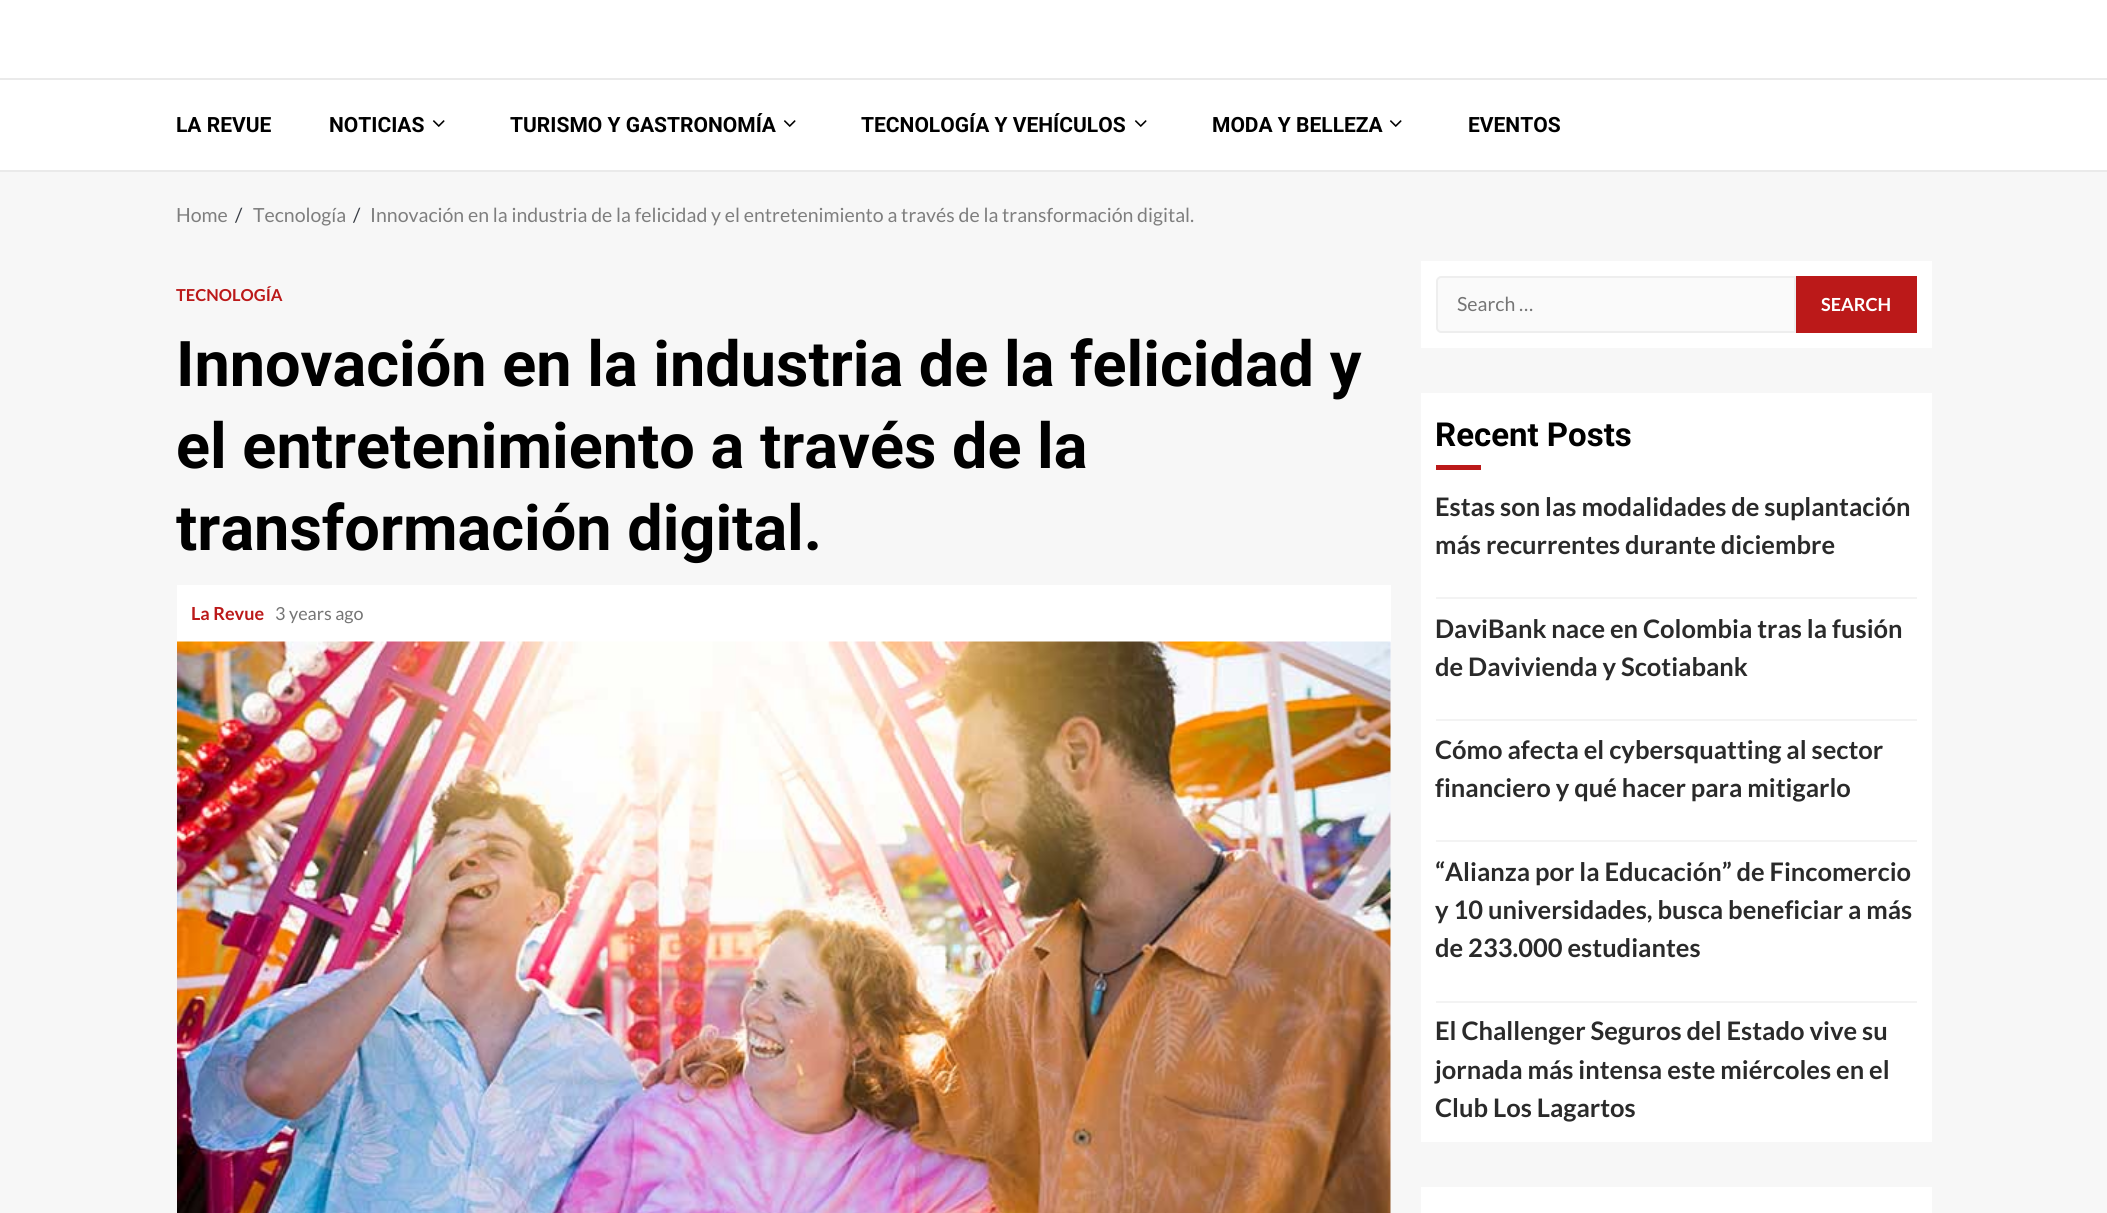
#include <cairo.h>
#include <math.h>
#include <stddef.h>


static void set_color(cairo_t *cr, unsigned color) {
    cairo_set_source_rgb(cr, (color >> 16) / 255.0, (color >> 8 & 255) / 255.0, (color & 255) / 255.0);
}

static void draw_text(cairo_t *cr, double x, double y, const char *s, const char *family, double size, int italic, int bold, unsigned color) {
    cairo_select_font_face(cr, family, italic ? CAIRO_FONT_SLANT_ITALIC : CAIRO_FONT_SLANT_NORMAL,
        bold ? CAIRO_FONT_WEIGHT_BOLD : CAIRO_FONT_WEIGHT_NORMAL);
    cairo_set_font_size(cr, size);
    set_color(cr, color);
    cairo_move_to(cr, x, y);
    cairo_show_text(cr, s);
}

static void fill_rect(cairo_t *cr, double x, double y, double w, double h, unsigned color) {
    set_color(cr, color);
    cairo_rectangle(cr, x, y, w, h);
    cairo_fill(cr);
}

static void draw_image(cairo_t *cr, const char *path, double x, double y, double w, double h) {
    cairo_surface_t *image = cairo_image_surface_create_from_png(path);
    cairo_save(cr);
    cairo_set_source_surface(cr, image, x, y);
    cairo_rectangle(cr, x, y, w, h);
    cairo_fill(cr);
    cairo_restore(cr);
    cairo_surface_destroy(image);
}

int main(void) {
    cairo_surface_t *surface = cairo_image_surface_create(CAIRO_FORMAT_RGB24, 2107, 1213);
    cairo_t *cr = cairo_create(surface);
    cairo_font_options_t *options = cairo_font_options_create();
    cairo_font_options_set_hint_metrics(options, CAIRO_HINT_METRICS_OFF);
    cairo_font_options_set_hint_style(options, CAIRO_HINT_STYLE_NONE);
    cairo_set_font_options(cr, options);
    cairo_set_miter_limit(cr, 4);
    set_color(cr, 0xF7F7F7);
    cairo_paint(cr);
    fill_rect(cr, 0, 0, 2107, 170, 0xFFFFFF);
    fill_rect(cr, 0, 78, 2107, 2, 0xEAEAEA);
    fill_rect(cr, 0, 170, 2107, 2, 0xEAEAEA);
    draw_text(cr, 176, 132, "LA REVUE", "Roboto", 21, 0, 1, 0x000000);
    draw_text(cr, 329, 132, "NOTICIAS", "Roboto", 21, 0, 1, 0x000000);
    draw_image(cr, "assets/img1.png", 432, 120, 13, 7);
    draw_text(cr, 510, 132, "TURISMO Y GASTRONOMÍA", "Roboto", 21, 0, 1, 0x000000);
    draw_image(cr, "assets/img1.png", 783, 120, 13, 7);
    draw_text(cr, 861, 132, "TECNOLOGÍA Y VEHÍCULOS", "Roboto", 21, 0, 1, 0x000000);
    draw_image(cr, "assets/img1.png", 1134, 120, 13, 7);
    draw_text(cr, 1212, 132, "MODA Y BELLEZA", "Roboto", 21, 0, 1, 0x000000);
    draw_image(cr, "assets/img1.png", 1389, 120, 13, 7);
    draw_text(cr, 1468, 132, "EVENTOS", "Roboto", 21, 0, 1, 0x000000);
    draw_text(cr, 176, 222, "Home", "Lato", 19.5, 0, 0, 0x7E7E7E);
    draw_text(cr, 235, 222, "/", "Lato", 19.5, 0, 0, 0x393E46);
    draw_text(cr, 253, 222, "Tecnología", "Lato", 19.5, 0, 0, 0x7E7E7E);
    draw_text(cr, 353, 222, "/", "Lato", 19.5, 0, 0, 0x393E46);
    draw_text(cr, 370, 222, "Innovación en la industria de la felicidad y el entretenimiento a través de la transformación digital.", "Lato", 19.5, 0, 0, 0x7E7E7E);
    draw_text(cr, 176, 301, "TECNOLOGÍA", "Lato", 16.5, 0, 1, 0xBB1919);
    draw_text(cr, 176, 386, "Innovación en la industria de la felicidad y", "Roboto", 63, 0, 1, 0x000000);
    draw_text(cr, 176, 468, "el entretenimiento a través de la", "Roboto", 63, 0, 1, 0x000000);
    draw_text(cr, 176, 550, "transformación digital.", "Roboto", 63, 0, 1, 0x000000);
    fill_rect(cr, 177, 585, 1214, 57, 0xFFFFFF);
    draw_text(cr, 191, 620, "La Revue", "Lato", 18, 0, 1, 0xBB1919);
    draw_text(cr, 275, 620, "3 years ago", "Lato", 18, 0, 0, 0x757575);
    draw_image(cr, "assets/img2.png", 177, 641, 1214, 572);
    fill_rect(cr, 1421, 261, 511, 87, 0xFFFFFF);
    set_color(cr, 0xFAFAFA);
    cairo_new_path(cr);
    cairo_move_to(cr, 1441, 277);
    cairo_line_to(cr, 1795, 277);
    cairo_line_to(cr, 1795, 332);
    cairo_line_to(cr, 1441, 332);
    cairo_curve_to(cr, 1439, 332, 1437, 330, 1437, 328);
    cairo_line_to(cr, 1437, 281);
    cairo_curve_to(cr, 1437, 279, 1439, 277, 1441, 277);
    cairo_close_path(cr);
    cairo_fill_preserve(cr);
    set_color(cr, 0xEEEEEE);
    cairo_stroke(cr);
    draw_text(cr, 1457, 311, "Search …", "Lato", 19.5, 0, 0, 0x757575);
    fill_rect(cr, 1796, 276, 121, 57, 0xBB1919);
    draw_text(cr, 1821, 311, "SEARCH", "Lato", 18, 0, 1, 0xFFFFFF);
    fill_rect(cr, 1421, 393, 511, 749, 0xFFFFFF);
    draw_text(cr, 1435, 446, "Recent Posts", "Roboto", 33, 0, 1, 0x000000);
    fill_rect(cr, 1436, 465, 45, 5, 0xBB1919);
    fill_rect(cr, 1436, 597, 481, 2, 0xF3F3F3);
    draw_text(cr, 1435, 516, "Estas son las modalidades de suplantación", "Lato", 25.5, 0, 1, 0x2A2A2A);
    draw_text(cr, 1435, 554, "más recurrentes durante diciembre", "Lato", 25.5, 0, 1, 0x2A2A2A);
    fill_rect(cr, 1436, 719, 481, 2, 0xF3F3F3);
    draw_text(cr, 1435, 638, "DaviBank nace en Colombia tras la fusión", "Lato", 25.5, 0, 1, 0x2A2A2A);
    draw_text(cr, 1435, 676, "de Davivienda y Scotiabank", "Lato", 25.5, 0, 1, 0x2A2A2A);
    fill_rect(cr, 1436, 840, 481, 2, 0xF3F3F3);
    draw_text(cr, 1435, 759, "Cómo afecta el cybersquatting al sector", "Lato", 25.5, 0, 1, 0x2A2A2A);
    draw_text(cr, 1435, 797, "financiero y qué hacer para mitigarlo", "Lato", 25.5, 0, 1, 0x2A2A2A);
    fill_rect(cr, 1436, 1001, 481, 2, 0xF3F3F3);
    draw_text(cr, 1435, 881, "“Alianza por la Educación” de Fincomercio", "Lato", 25.5, 0, 1, 0x2A2A2A);
    draw_text(cr, 1435, 919, "y 10 universidades, busca beneficiar a más", "Lato", 25.5, 0, 1, 0x2A2A2A);
    draw_text(cr, 1435, 957, "de 233.000 estudiantes", "Lato", 25.5, 0, 1, 0x2A2A2A);
    draw_text(cr, 1435, 1040, "El Challenger Seguros del Estado vive su", "Lato", 25.5, 0, 1, 0x2A2A2A);
    draw_text(cr, 1435, 1079, "jornada más intensa este miércoles en el", "Lato", 25.5, 0, 1, 0x2A2A2A);
    draw_text(cr, 1435, 1117, "Club Los Lagartos", "Lato", 25.5, 0, 1, 0x2A2A2A);
    fill_rect(cr, 1421, 1187, 511, 26, 0xFFFFFF);
    cairo_surface_write_to_png(surface, "output.png");
    cairo_font_options_destroy(options);
    cairo_destroy(cr);
    cairo_surface_destroy(surface);
    return 0;
}
